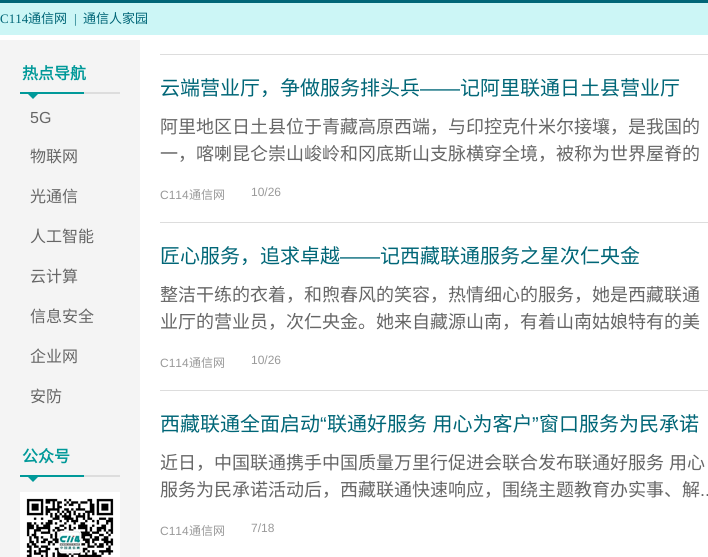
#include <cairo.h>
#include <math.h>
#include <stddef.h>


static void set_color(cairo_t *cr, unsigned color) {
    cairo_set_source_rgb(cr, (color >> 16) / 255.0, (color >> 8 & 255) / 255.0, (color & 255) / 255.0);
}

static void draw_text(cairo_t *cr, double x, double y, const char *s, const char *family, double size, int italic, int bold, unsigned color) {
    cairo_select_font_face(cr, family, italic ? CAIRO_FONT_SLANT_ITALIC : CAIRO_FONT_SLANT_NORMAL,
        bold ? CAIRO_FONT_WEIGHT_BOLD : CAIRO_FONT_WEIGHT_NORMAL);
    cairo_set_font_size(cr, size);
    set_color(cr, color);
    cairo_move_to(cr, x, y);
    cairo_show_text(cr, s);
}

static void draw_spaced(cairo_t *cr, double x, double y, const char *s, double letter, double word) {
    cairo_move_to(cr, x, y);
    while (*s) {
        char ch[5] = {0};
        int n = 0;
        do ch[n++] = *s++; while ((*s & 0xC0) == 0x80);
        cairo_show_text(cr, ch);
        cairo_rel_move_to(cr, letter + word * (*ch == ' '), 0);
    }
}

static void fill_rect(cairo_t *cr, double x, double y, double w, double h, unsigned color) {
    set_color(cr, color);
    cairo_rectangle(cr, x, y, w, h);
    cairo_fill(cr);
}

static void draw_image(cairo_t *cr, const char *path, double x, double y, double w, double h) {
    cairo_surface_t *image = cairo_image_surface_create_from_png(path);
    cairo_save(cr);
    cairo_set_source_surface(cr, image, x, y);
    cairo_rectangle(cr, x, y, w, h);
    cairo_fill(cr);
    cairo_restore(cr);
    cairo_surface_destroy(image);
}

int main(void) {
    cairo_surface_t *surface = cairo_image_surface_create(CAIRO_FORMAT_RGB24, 708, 557);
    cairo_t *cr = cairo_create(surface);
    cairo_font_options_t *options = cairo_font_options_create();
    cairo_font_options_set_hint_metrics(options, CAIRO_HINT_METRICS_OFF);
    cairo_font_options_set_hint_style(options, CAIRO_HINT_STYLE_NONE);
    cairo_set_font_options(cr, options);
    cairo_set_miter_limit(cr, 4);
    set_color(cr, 0xFFFFFF);
    cairo_paint(cr);
    fill_rect(cr, 0, 3, 708, 32, 0xCCF6F6);
    fill_rect(cr, 0, 0, 708, 3, 0x006677);
    draw_text(cr, 0, 23, "C114", "Liberation Serif", 13, 0, 0, 0x006677);
    draw_text(cr, 28, 23, "通信网", "Noto Sans CJK SC", 13, 0, 0, 0x006677);
    draw_text(cr, 74, 23, "|", "Liberation Serif", 13, 0, 0, 0x006677);
    draw_text(cr, 83, 23, "通信人家园", "Noto Sans CJK SC", 13, 0, 0, 0x006677);
    fill_rect(cr, 0, 40, 140, 517, 0xF4F4F4);
    draw_image(cr, "assets/img1.png", 20, 92, 100, 7);
    draw_text(cr, 22, 79, "热点导航", "Noto Sans CJK SC", 16, 0, 1, 0x009999);
    draw_text(cr, 30, 123, "5G", "Liberation Sans", 16, 0, 0, 0x666666);
    draw_text(cr, 30, 162, "物联网", "Noto Sans CJK SC", 16, 0, 0, 0x666666);
    draw_text(cr, 30, 202, "光通信", "Noto Sans CJK SC", 16, 0, 0, 0x666666);
    draw_text(cr, 30, 242, "人工智能", "Noto Sans CJK SC", 16, 0, 0, 0x666666);
    draw_text(cr, 30, 282, "云计算", "Noto Sans CJK SC", 16, 0, 0, 0x666666);
    draw_text(cr, 30, 322, "信息安全", "Noto Sans CJK SC", 16, 0, 0, 0x666666);
    draw_text(cr, 30, 362, "企业网", "Noto Sans CJK SC", 16, 0, 0, 0x666666);
    draw_text(cr, 30, 402, "安防", "Noto Sans CJK SC", 16, 0, 0, 0x666666);
    draw_image(cr, "assets/img1.png", 20, 475, 100, 7);
    draw_text(cr, 22, 462, "公众号", "Noto Sans CJK SC", 16, 0, 1, 0x009999);
    draw_image(cr, "assets/img2.png", 20, 492, 100, 65);
    fill_rect(cr, 160, 54, 548, 1, 0xDDDDDD);
    draw_text(cr, 160, 95, "云端营业厅，争做服务排头兵", "Noto Sans CJK SC", 20, 0, 0, 0x006677);
    draw_text(cr, 420, 95, "——", "Liberation Sans", 20, 0, 0, 0x006677);
    draw_text(cr, 460, 95, "记阿里联通日土县营业厅", "Noto Sans CJK SC", 20, 0, 0, 0x006677);
    draw_text(cr, 160, 133, "阿里地区日土县位于青藏高原西端，与印控克什米尔接壤，是我国的", "Noto Sans CJK SC", 18, 0, 0, 0x666666);
    draw_text(cr, 160, 160, "一，喀喇昆仑崇山峻岭和冈底斯山支脉横穿全境，被称为世界屋脊的", "Noto Sans CJK SC", 18, 0, 0, 0x666666);
    draw_text(cr, 160, 199, "C114", "Liberation Sans", 12, 0, 0, 0x999999);
    draw_text(cr, 189, 199, "通信网", "Noto Sans CJK SC", 12, 0, 0, 0x999999);
    draw_text(cr, 251, 196, "10/26", "Liberation Sans", 12, 0, 0, 0x999999);
    fill_rect(cr, 160, 222, 548, 1, 0xDDDDDD);
    draw_text(cr, 160, 263, "匠心服务，追求卓越", "Noto Sans CJK SC", 20, 0, 0, 0x006677);
    draw_text(cr, 340, 263, "——", "Liberation Sans", 20, 0, 0, 0x006677);
    draw_text(cr, 380, 263, "记西藏联通服务之星次仁央金", "Noto Sans CJK SC", 20, 0, 0, 0x006677);
    draw_text(cr, 160, 301, "整洁干练的衣着，和煦春风的笑容，热情细心的服务，她是西藏联通", "Noto Sans CJK SC", 18, 0, 0, 0x666666);
    draw_text(cr, 160, 328, "业厅的营业员，次仁央金。她来自藏源山南，有着山南姑娘特有的美", "Noto Sans CJK SC", 18, 0, 0, 0x666666);
    draw_text(cr, 160, 367, "C114", "Liberation Sans", 12, 0, 0, 0x999999);
    draw_text(cr, 189, 367, "通信网", "Noto Sans CJK SC", 12, 0, 0, 0x999999);
    draw_text(cr, 251, 364, "10/26", "Liberation Sans", 12, 0, 0, 0x999999);
    fill_rect(cr, 160, 390, 548, 1, 0xDDDDDD);
    draw_text(cr, 160, 431, "西藏联通全面启动", "Noto Sans CJK SC", 20, 0, 0, 0x006677);
    draw_text(cr, 320, 431, "“", "Liberation Sans", 20, 0, 0, 0x006677);
    cairo_select_font_face(cr, "Noto Sans CJK SC", CAIRO_FONT_SLANT_NORMAL, CAIRO_FONT_WEIGHT_NORMAL);
    draw_spaced(cr, 327, 431, "联通好服务 用心为客户", 0, 1);
    draw_text(cr, 532, 431, "”", "Liberation Sans", 20, 0, 0, 0x006677);
    draw_text(cr, 539, 431, "窗口服务为民承诺", "Noto Sans CJK SC", 20, 0, 0, 0x006677);
    cairo_set_font_size(cr, 18);
    set_color(cr, 0x666666);
    draw_spaced(cr, 160, 469, "近日，中国联通携手中国质量万里行促进会联合发布联通好服务 用心", 0, 1);
    draw_text(cr, 160, 496, "服务为民承诺活动后，西藏联通快速响应，围绕主题教育办实事、解", "Noto Sans CJK SC", 18, 0, 0, 0x666666);
    draw_text(cr, 700, 496, "..", "Liberation Sans", 18, 0, 0, 0x666666);
    draw_text(cr, 160, 535, "C114", "Liberation Sans", 12, 0, 0, 0x999999);
    draw_text(cr, 189, 535, "通信网", "Noto Sans CJK SC", 12, 0, 0, 0x999999);
    draw_text(cr, 251, 532, "7/18", "Liberation Sans", 12, 0, 0, 0x999999);
    cairo_surface_write_to_png(surface, "output.png");
    cairo_font_options_destroy(options);
    cairo_destroy(cr);
    cairo_surface_destroy(surface);
    return 0;
}
